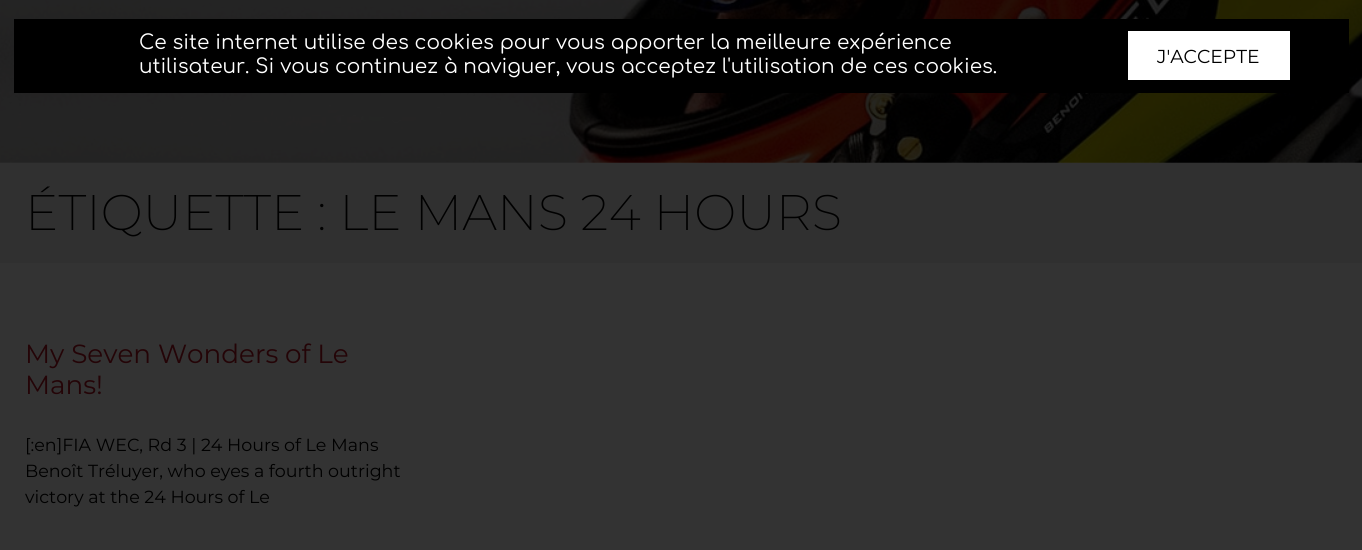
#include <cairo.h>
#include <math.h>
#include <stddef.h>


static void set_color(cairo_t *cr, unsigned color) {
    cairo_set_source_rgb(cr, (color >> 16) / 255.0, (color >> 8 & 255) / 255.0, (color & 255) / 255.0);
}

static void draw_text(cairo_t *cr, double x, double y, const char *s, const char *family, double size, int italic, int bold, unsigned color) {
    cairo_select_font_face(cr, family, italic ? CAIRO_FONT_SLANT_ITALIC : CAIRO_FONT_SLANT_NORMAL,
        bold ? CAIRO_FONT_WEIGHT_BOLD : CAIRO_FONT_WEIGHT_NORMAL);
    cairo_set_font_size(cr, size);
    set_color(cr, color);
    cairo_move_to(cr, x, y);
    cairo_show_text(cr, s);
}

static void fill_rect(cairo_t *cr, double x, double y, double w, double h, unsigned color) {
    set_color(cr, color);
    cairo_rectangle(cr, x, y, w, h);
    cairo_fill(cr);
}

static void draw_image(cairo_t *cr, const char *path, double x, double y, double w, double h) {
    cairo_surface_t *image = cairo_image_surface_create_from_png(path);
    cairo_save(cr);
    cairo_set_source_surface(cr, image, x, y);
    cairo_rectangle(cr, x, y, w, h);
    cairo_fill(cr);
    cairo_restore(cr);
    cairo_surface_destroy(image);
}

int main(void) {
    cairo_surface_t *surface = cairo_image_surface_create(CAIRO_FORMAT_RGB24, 1362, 550);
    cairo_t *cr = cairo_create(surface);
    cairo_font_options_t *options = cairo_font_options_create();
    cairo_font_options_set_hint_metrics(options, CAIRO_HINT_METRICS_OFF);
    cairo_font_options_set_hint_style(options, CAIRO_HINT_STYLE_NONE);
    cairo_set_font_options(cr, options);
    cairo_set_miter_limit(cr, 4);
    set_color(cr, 0x333333);
    cairo_paint(cr);
    draw_image(cr, "assets/img1.png", 0, 0, 1362, 163);
    fill_rect(cr, 14, 19, 1335, 74, 0x000000);
    draw_text(cr, 139, 49, "Ce site internet utilise des cookies pour vous apporter la meilleure expérience", "Comfortaa", 20, 0, 0, 0xFFFFFF);
    draw_text(cr, 139, 73, "utilisateur. Si vous continuez à naviguer, vous acceptez l'utilisation de ces cookies.", "Comfortaa", 20, 0, 0, 0xFFFFFF);
    fill_rect(cr, 1128, 31, 162, 49, 0xFFFFFF);
    draw_text(cr, 1157, 63, "J'ACCEPTE", "Montserrat", 18.75, 0, 0, 0x000000);
    fill_rect(cr, 0, 163, 1362, 100, 0x303030);
    draw_text(cr, 25, 230, "ÉTIQUETTE : LE MANS 24 HOURS", "Montserrat ExtraLight", 50, 0, 0, 0x000000);
    draw_text(cr, 25, 363, "My Seven Wonders of Le", "Montserrat", 26.25, 0, 0, 0x240407);
    draw_text(cr, 25, 394, "Mans!", "Montserrat", 26.25, 0, 0, 0x240407);
    draw_text(cr, 25, 451, "[:en]FIA WEC, Rd 3 | 24 Hours of Le Mans", "Montserrat", 17.5, 0, 0, 0x000000);
    draw_text(cr, 25, 477, "Benoît Tréluyer, who eyes a fourth outright", "Montserrat", 17.5, 0, 0, 0x000000);
    draw_text(cr, 25, 503, "victory at the 24 Hours of Le", "Montserrat", 17.5, 0, 0, 0x000000);
    cairo_surface_write_to_png(surface, "output.png");
    cairo_font_options_destroy(options);
    cairo_destroy(cr);
    cairo_surface_destroy(surface);
    return 0;
}
